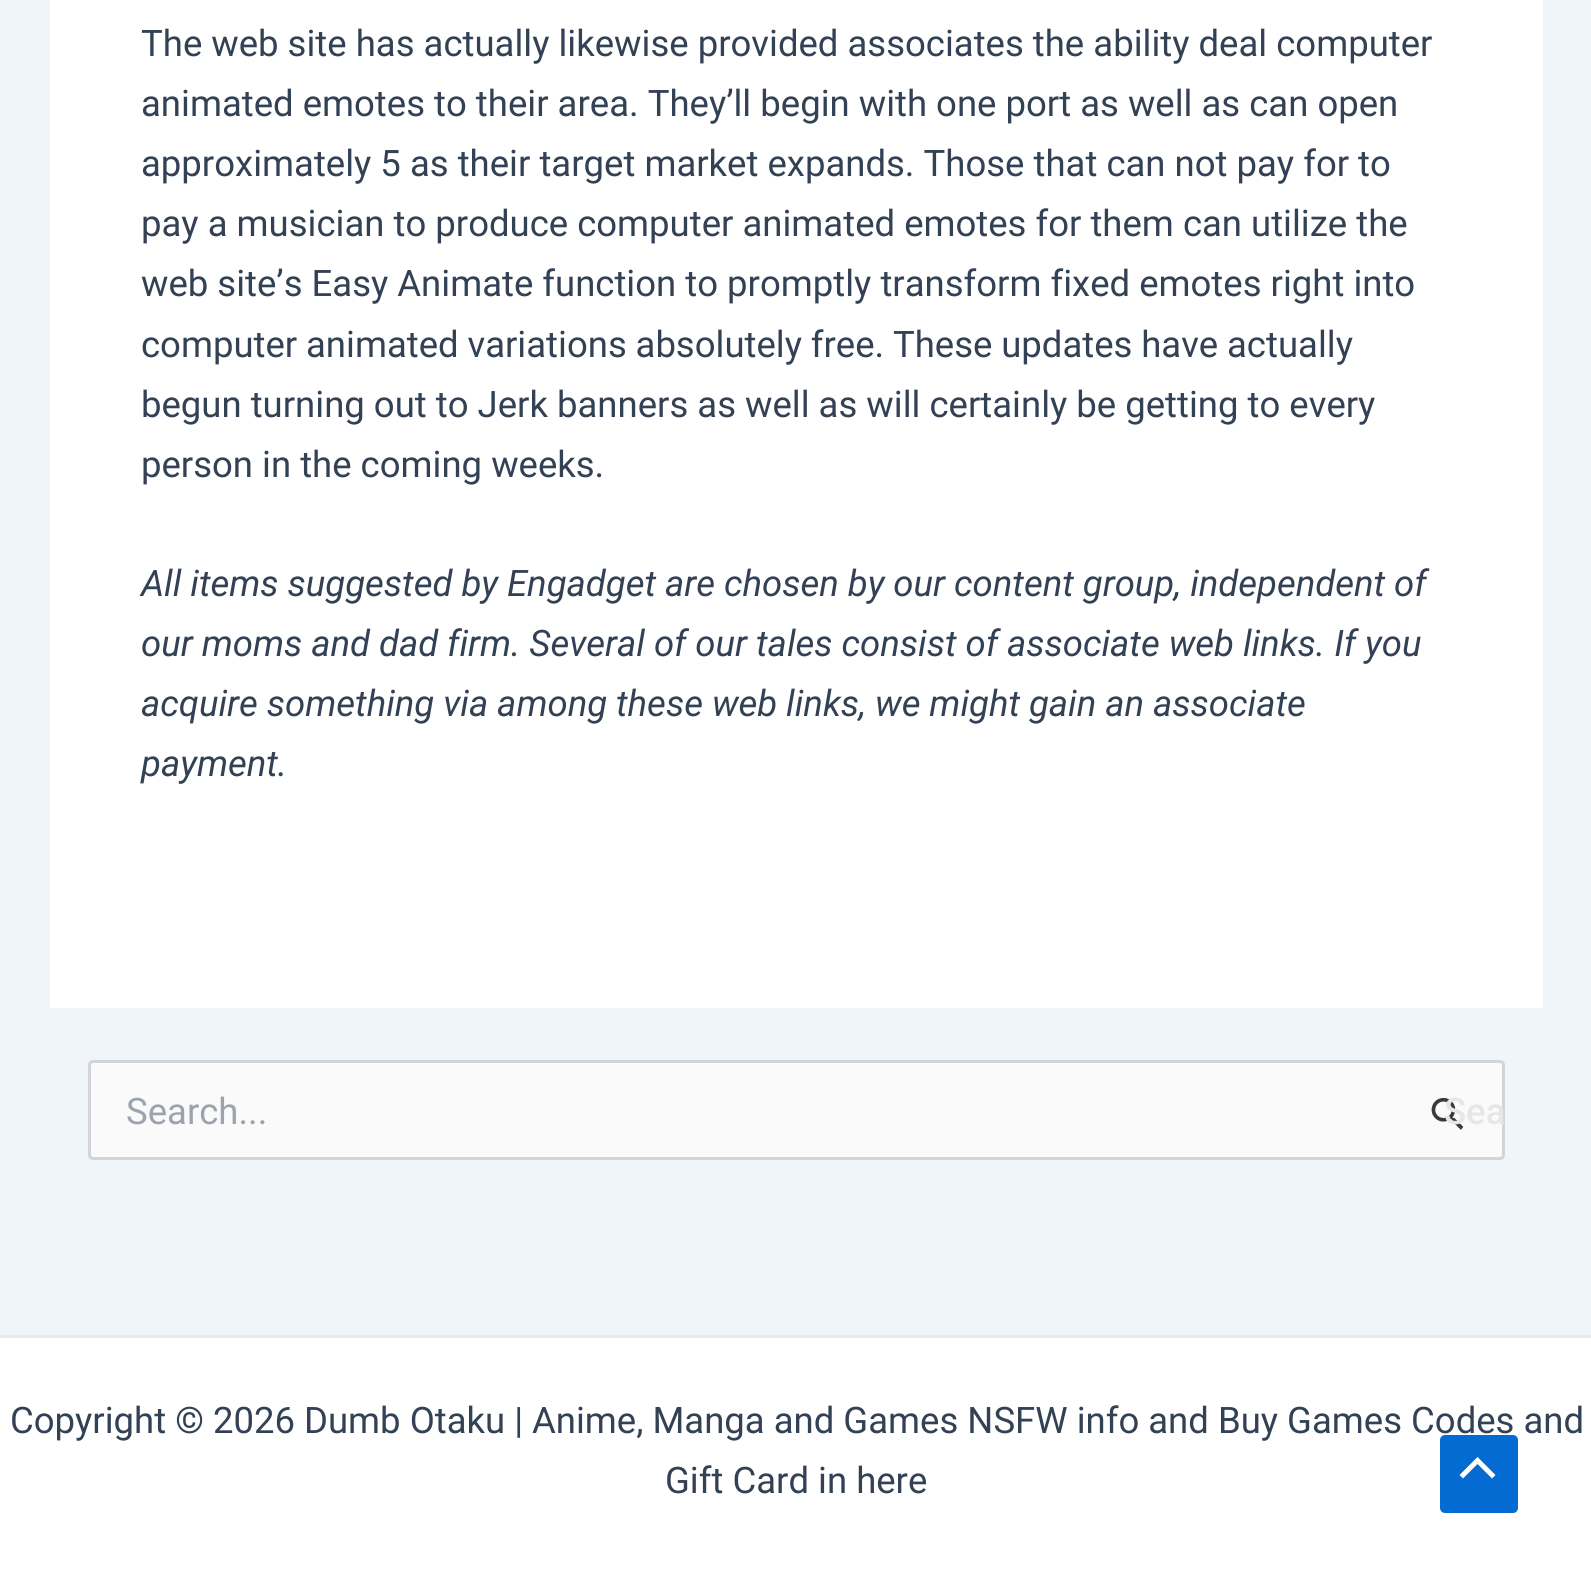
#include <cairo.h>
#include <math.h>
#include <stddef.h>


static void set_color(cairo_t *cr, unsigned color) {
    cairo_set_source_rgb(cr, (color >> 16) / 255.0, (color >> 8 & 255) / 255.0, (color & 255) / 255.0);
}

static void draw_text(cairo_t *cr, double x, double y, const char *s, const char *family, double size, int italic, int bold, unsigned color) {
    cairo_select_font_face(cr, family, italic ? CAIRO_FONT_SLANT_ITALIC : CAIRO_FONT_SLANT_NORMAL,
        bold ? CAIRO_FONT_WEIGHT_BOLD : CAIRO_FONT_WEIGHT_NORMAL);
    cairo_set_font_size(cr, size);
    set_color(cr, color);
    cairo_move_to(cr, x, y);
    cairo_show_text(cr, s);
}

static void draw_spaced(cairo_t *cr, double x, double y, const char *s, double letter, double word) {
    cairo_move_to(cr, x, y);
    while (*s) {
        char ch[5] = {0};
        int n = 0;
        do ch[n++] = *s++; while ((*s & 0xC0) == 0x80);
        cairo_show_text(cr, ch);
        cairo_rel_move_to(cr, letter + word * (*ch == ' '), 0);
    }
}

static void fill_rect(cairo_t *cr, double x, double y, double w, double h, unsigned color) {
    set_color(cr, color);
    cairo_rectangle(cr, x, y, w, h);
    cairo_fill(cr);
}

static void rounded_rect(cairo_t *cr, double x, double y, double w, double h, double r) {
    cairo_new_sub_path(cr);
    cairo_arc(cr, x + w - r, y + h - r, r, 0, M_PI / 2);
    cairo_arc(cr, x + r, y + h - r, r, M_PI / 2, M_PI);
    cairo_arc(cr, x + r, y + r, r, M_PI, 1.5 * M_PI);
    cairo_arc(cr, x + w - r, y + r, r, 1.5 * M_PI, 2 * M_PI);
    cairo_close_path(cr);
}

static void draw_image(cairo_t *cr, const char *path, double x, double y, double w, double h) {
    cairo_surface_t *image = cairo_image_surface_create_from_png(path);
    cairo_save(cr);
    cairo_set_source_surface(cr, image, x, y);
    cairo_rectangle(cr, x, y, w, h);
    cairo_fill(cr);
    cairo_restore(cr);
    cairo_surface_destroy(image);
}

int main(void) {
    cairo_surface_t *surface = cairo_image_surface_create(CAIRO_FORMAT_RGB24, 1591, 1586);
    cairo_t *cr = cairo_create(surface);
    cairo_font_options_t *options = cairo_font_options_create();
    cairo_font_options_set_hint_metrics(options, CAIRO_HINT_METRICS_OFF);
    cairo_font_options_set_hint_style(options, CAIRO_HINT_STYLE_NONE);
    cairo_set_font_options(cr, options);
    cairo_set_miter_limit(cr, 4);
    set_color(cr, 0xF0F5FA);
    cairo_paint(cr);
    fill_rect(cr, 50, 0, 1493, 1008, 0xFFFFFF);
    draw_text(cr, 141, 56, "The web site has actually likewise provided associates the ability deal computer", "Roboto", 36.5, 0, 0, 0x334155);
    draw_text(cr, 141, 116, "animated emotes to their area. They’ll begin with one port as well as can open", "Roboto", 36.5, 0, 0, 0x334155);
    draw_text(cr, 141, 176, "approximately 5 as their target market expands. Those that can not pay for to", "Roboto", 36.5, 0, 0, 0x334155);
    draw_text(cr, 141, 236, "pay a musician to produce computer animated emotes for them can utilize the", "Roboto", 36.5, 0, 0, 0x334155);
    draw_text(cr, 141, 296, "web site’s Easy Animate function to promptly transform fixed emotes right into", "Roboto", 36.5, 0, 0, 0x334155);
    draw_spaced(cr, 141, 357, "computer animated variations absolutely free. These updates have actually", 0, -0.25);
    draw_text(cr, 141, 417, "begun turning out to Jerk banners as well as will certainly be getting to every", "Roboto", 36.5, 0, 0, 0x334155);
    draw_text(cr, 141, 477, "person in the coming weeks.", "Roboto", 36.5, 0, 0, 0x334155);
    draw_text(cr, 141, 596, "All items suggested by Engadget are chosen by our content group, independent of", "Roboto", 36.5, 1, 0, 0x334155);
    draw_text(cr, 141, 656, "our moms and dad firm. Several of our tales consist of associate web links. If you", "Roboto", 36.5, 1, 0, 0x334155);
    draw_text(cr, 141, 716, "acquire something via among these web links, we might gain an associate", "Roboto", 36.5, 1, 0, 0x334155);
    draw_text(cr, 141, 776, "payment.", "Roboto", 36.5, 1, 0, 0x334155);
    set_color(cr, 0xFAFAFA);
    rounded_rect(cr, 89.5, 1061.5, 1414, 97, 3.5);
    cairo_fill_preserve(cr);
    set_color(cr, 0xD1D5DB);
    cairo_set_line_width(cr, 3);
    cairo_stroke(cr);
    draw_text(cr, 126, 1124, "Search...", "Roboto", 36.5, 0, 0, 0x9CA3AF);
    draw_image(cr, "assets/img1.png", 1431, 1098, 32, 32);
    draw_text(cr, 1444, 1124, "Sea", "Roboto Medium", 36.5, 0, 0, 0xE6E6E6);
    fill_rect(cr, 0, 1338, 1591, 248, 0xFFFFFF);
    fill_rect(cr, 0, 1335, 1591, 3, 0xEAEAEA);
    draw_text(cr, 10, 1433, "Copyright © 2026 Dumb Otaku |", "Roboto", 36.5, 0, 0, 0x334155);
    draw_text(cr, 532, 1433, "Anime, Manga and Games NSFW info and Buy Games Codes and", "Roboto", 36.5, 0, 0, 0x334155);
    draw_text(cr, 665, 1493, "Gift Card in here", "Roboto", 36.5, 0, 0, 0x334155);
    set_color(cr, 0x046BD2);
    rounded_rect(cr, 1440, 1435, 78, 78, 5);
    cairo_fill(cr);
    set_color(cr, 0xFFFFFF);
    cairo_new_path(cr);
    cairo_move_to(cr, 1495.5, 1475);
    cairo_line_to(cr, 1477.5, 1457);
    cairo_line_to(cr, 1459.5, 1475);
    cairo_line_to(cr, 1463, 1478.5);
    cairo_line_to(cr, 1477.5, 1464);
    cairo_line_to(cr, 1492, 1478.5);
    cairo_close_path(cr);
    cairo_fill(cr);
    cairo_surface_write_to_png(surface, "output.png");
    cairo_font_options_destroy(options);
    cairo_destroy(cr);
    cairo_surface_destroy(surface);
    return 0;
}
